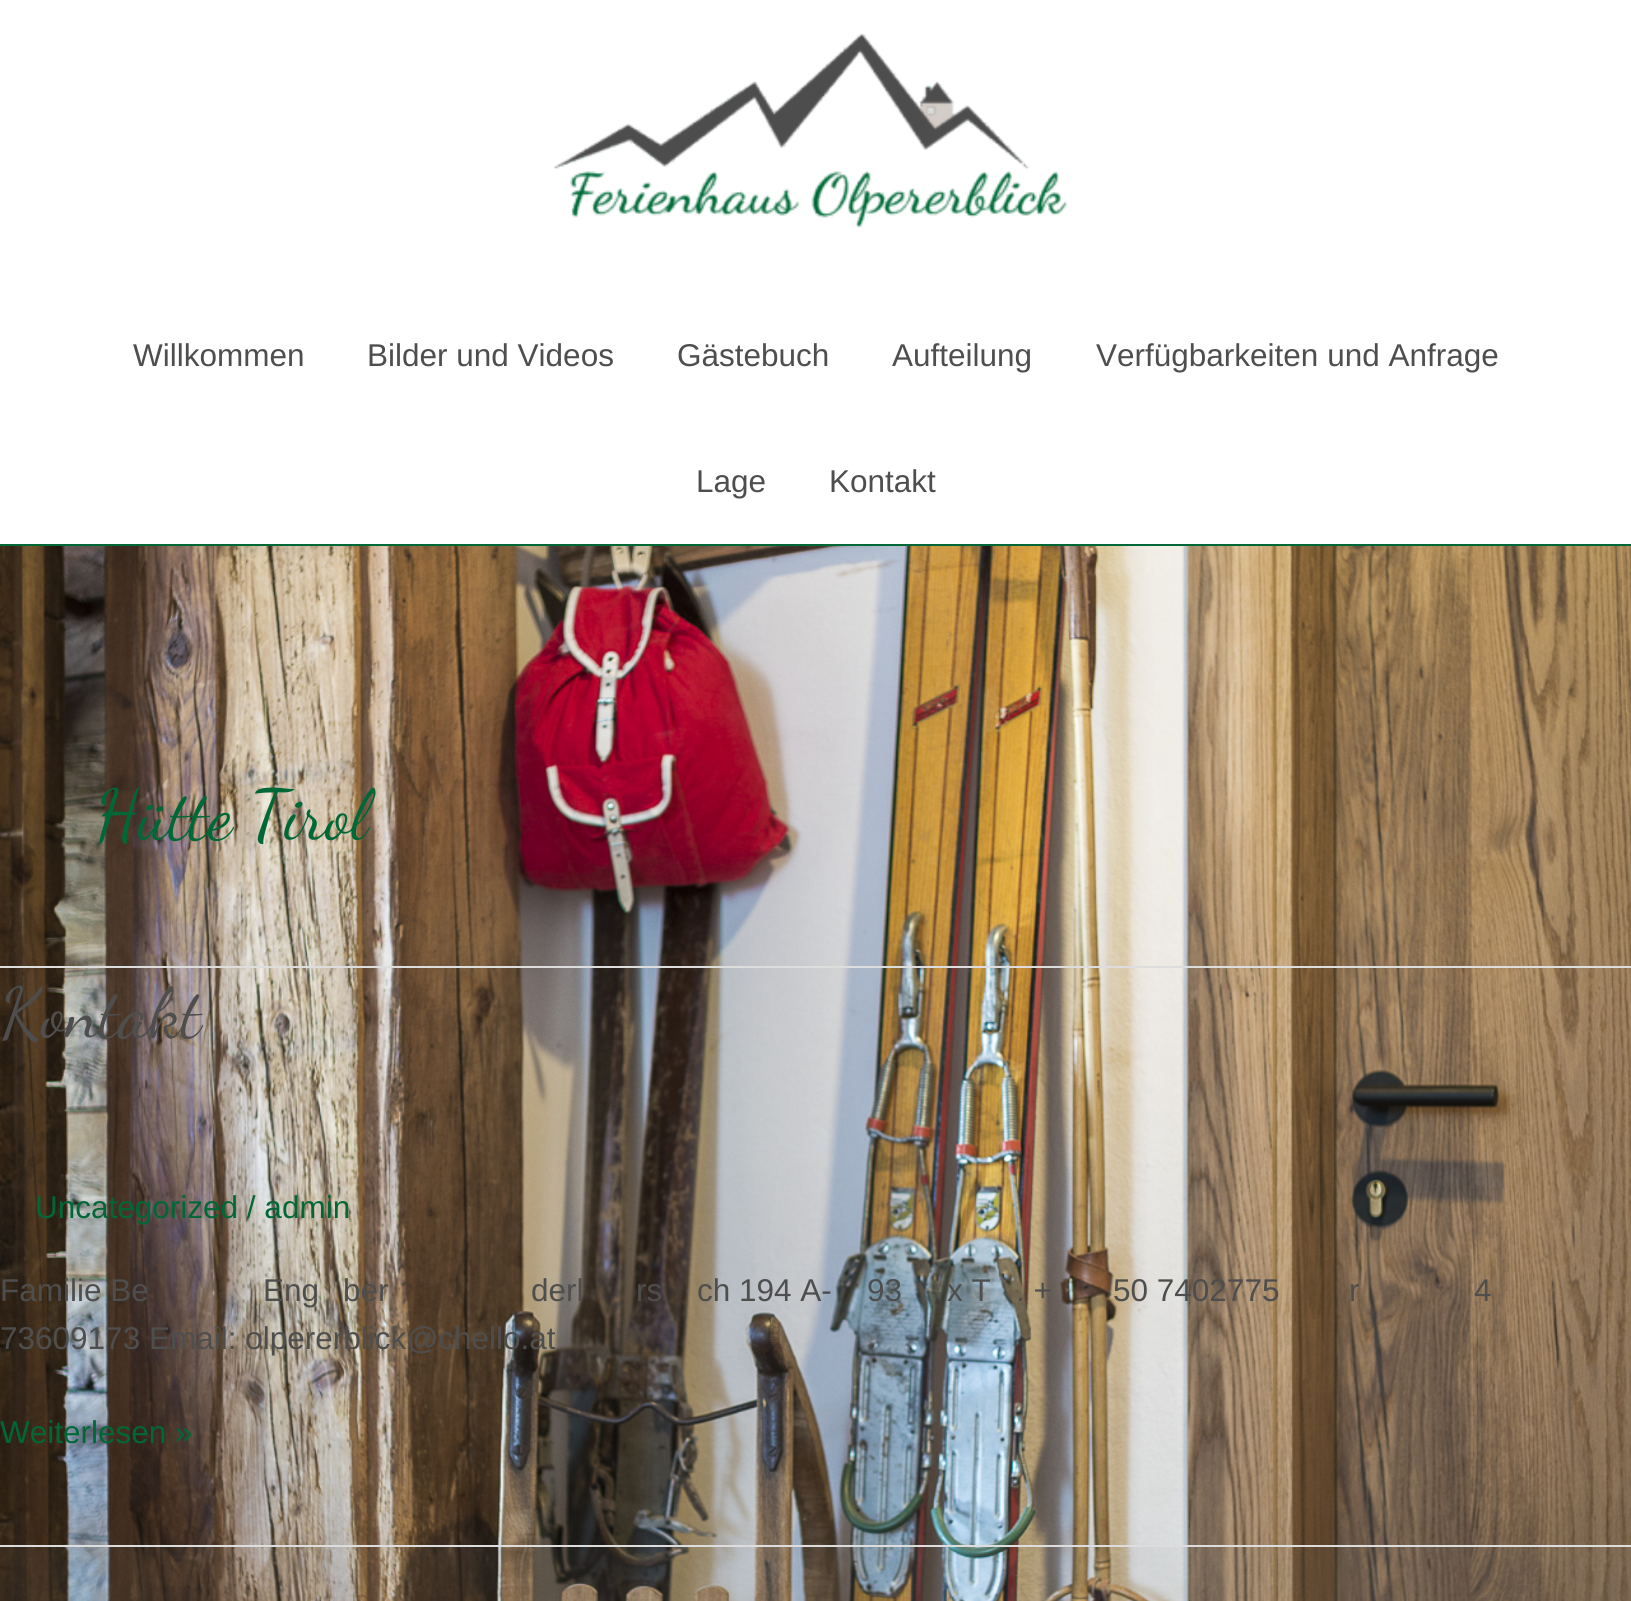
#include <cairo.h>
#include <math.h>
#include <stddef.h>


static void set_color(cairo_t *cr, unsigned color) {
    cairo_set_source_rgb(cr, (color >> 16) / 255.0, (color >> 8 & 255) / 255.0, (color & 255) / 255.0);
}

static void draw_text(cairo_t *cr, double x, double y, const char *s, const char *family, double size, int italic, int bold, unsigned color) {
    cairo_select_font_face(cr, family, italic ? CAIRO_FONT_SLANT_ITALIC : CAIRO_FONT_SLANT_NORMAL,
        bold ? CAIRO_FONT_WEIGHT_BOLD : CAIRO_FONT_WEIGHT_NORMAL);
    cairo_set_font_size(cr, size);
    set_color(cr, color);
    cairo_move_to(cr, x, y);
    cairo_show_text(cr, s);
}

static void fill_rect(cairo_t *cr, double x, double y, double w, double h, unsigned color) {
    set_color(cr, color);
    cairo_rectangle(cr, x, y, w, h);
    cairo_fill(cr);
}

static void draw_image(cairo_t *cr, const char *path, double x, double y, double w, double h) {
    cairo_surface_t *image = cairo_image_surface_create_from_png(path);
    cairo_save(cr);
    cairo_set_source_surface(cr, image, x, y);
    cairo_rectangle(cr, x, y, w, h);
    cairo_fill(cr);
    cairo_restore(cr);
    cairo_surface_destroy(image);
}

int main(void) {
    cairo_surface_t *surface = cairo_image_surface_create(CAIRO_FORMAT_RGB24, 1631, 1601);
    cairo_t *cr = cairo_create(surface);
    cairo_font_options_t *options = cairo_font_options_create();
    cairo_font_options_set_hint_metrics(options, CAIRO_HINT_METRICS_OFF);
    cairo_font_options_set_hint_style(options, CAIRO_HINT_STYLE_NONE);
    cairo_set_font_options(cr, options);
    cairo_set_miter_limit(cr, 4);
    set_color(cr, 0xFFFFFF);
    cairo_paint(cr);
    draw_image(cr, "assets/img1.png", 0, 546, 1631, 1055);
    fill_rect(cr, 0, 544, 1631, 2, 0x006837);
    draw_image(cr, "assets/img2.png", 554, 33, 514, 195);
    draw_text(cr, 133, 366, "Willkommen", "Liberation Sans", 31.5, 0, 0, 0x4E4E4E);
    draw_text(cr, 367, 366, "Bilder und Videos", "Liberation Sans", 31.5, 0, 0, 0x4E4E4E);
    draw_text(cr, 677, 366, "Gästebuch", "Liberation Sans", 31.5, 0, 0, 0x4E4E4E);
    draw_text(cr, 892, 366, "Aufteilung", "Liberation Sans", 31.5, 0, 0, 0x4E4E4E);
    draw_text(cr, 1096, 366, "Verfügbarkeiten und Anfrage", "Liberation Sans", 31.5, 0, 0, 0x4E4E4E);
    draw_text(cr, 696, 492, "Lage", "Liberation Sans", 31.5, 0, 0, 0x4E4E4E);
    draw_text(cr, 829, 492, "Kontakt", "Liberation Sans", 31.5, 0, 0, 0x4E4E4E);
    fill_rect(cr, 0, 966, 1631, 2, 0xDDDDDD);
    draw_text(cr, 95, 838, "Hütte Tirol", "Dancing Script", 70, 0, 0, 0x006837);
    fill_rect(cr, 0, 1545, 1631, 2, 0xDDDDDD);
    draw_text(cr, 0, 1036, "Kontakt", "Dancing Script", 70, 0, 0, 0x4E4E4E);
    draw_text(cr, 35, 1218, "Uncategorized / admin", "Liberation Sans", 31.5, 0, 0, 0x006837);
    draw_text(cr, 0, 1301, "Familie Be", "Liberation Sans", 31.5, 0, 0, 0x4E4E4E);
    draw_text(cr, 263, 1301, "Eng", "Liberation Sans", 31.5, 0, 0, 0x4E4E4E);
    draw_text(cr, 343, 1301, "ber", "Liberation Sans", 31.5, 0, 0, 0x4E4E4E);
    draw_text(cr, 531, 1301, "derl", "Liberation Sans", 31.5, 0, 0, 0x4E4E4E);
    draw_text(cr, 636, 1301, "rs", "Liberation Sans", 31.5, 0, 0, 0x4E4E4E);
    draw_text(cr, 697, 1301, "ch 194 A-", "Liberation Sans", 31.5, 0, 0, 0x4E4E4E);
    draw_text(cr, 867, 1301, "93", "Liberation Sans", 31.5, 0, 0, 0x4E4E4E);
    draw_text(cr, 947, 1301, "x T", "Liberation Sans", 31.5, 0, 0, 0x4E4E4E);
    draw_text(cr, 1016, 1301, ". +", "Liberation Sans", 31.5, 0, 0, 0x4E4E4E);
    draw_text(cr, 1113, 1301, "50 7402775", "Liberation Sans", 31.5, 0, 0, 0x4E4E4E);
    draw_text(cr, 1349, 1301, "r", "Liberation Sans", 31.5, 0, 0, 0x4E4E4E);
    draw_text(cr, 1474, 1301, "4", "Liberation Sans", 31.5, 0, 0, 0x4E4E4E);
    draw_text(cr, 0, 1349, "73609173 Email: olpererblick@chello.at", "Liberation Sans", 31.5, 0, 0, 0x4E4E4E);
    draw_text(cr, 0, 1443, "Weiterlesen »", "Liberation Sans", 31.5, 0, 0, 0x006837);
    cairo_set_source_rgba(cr, 0.6, 0.6, 0.6, 0.07);
    cairo_rectangle(cr, 0, 1547, 1631, 54);
    cairo_fill(cr);
    cairo_surface_write_to_png(surface, "output.png");
    cairo_font_options_destroy(options);
    cairo_destroy(cr);
    cairo_surface_destroy(surface);
    return 0;
}
